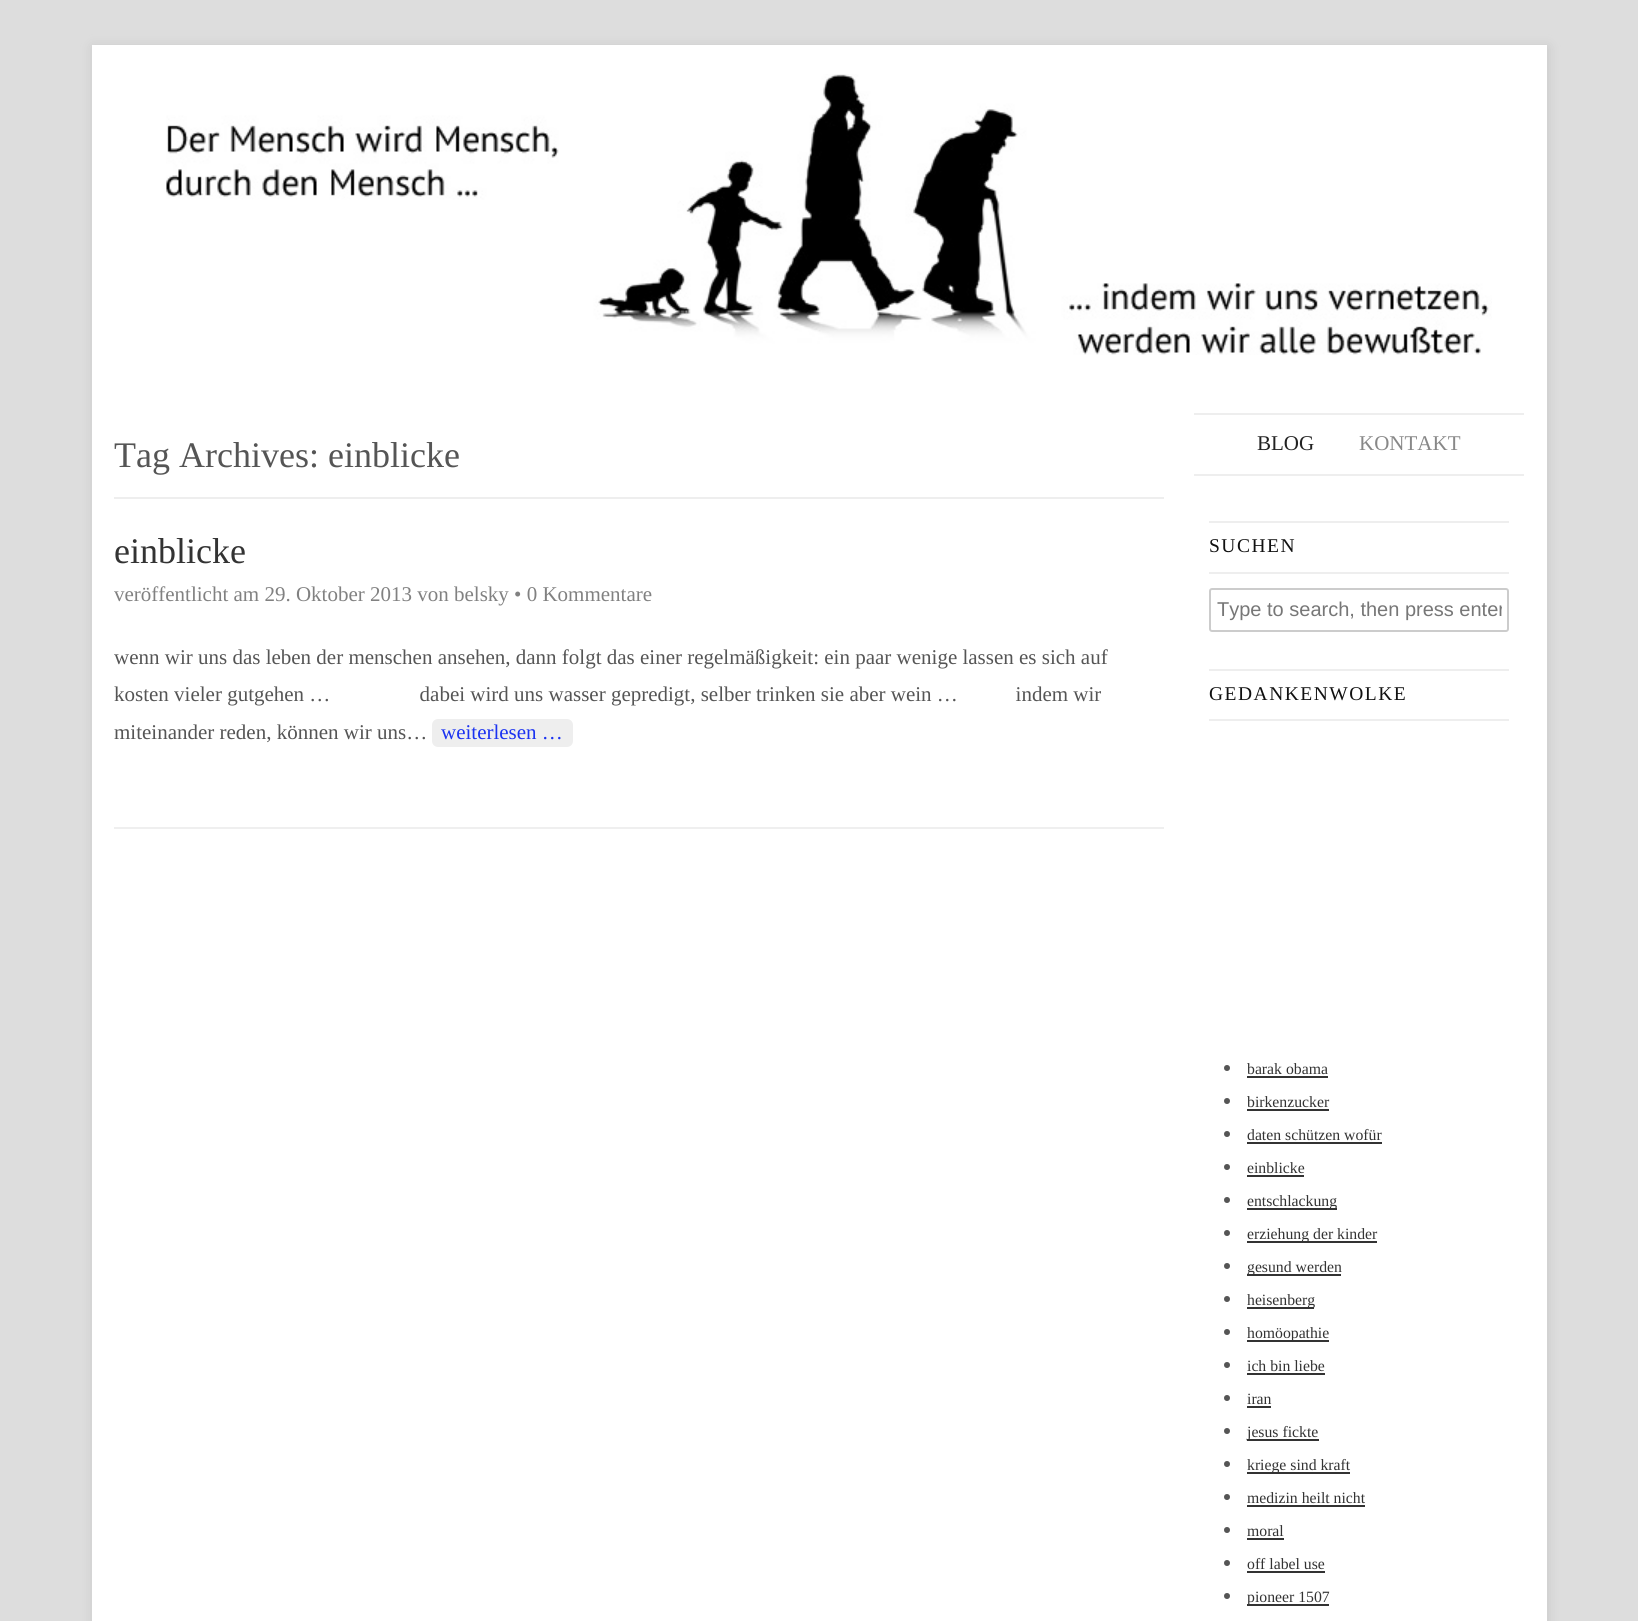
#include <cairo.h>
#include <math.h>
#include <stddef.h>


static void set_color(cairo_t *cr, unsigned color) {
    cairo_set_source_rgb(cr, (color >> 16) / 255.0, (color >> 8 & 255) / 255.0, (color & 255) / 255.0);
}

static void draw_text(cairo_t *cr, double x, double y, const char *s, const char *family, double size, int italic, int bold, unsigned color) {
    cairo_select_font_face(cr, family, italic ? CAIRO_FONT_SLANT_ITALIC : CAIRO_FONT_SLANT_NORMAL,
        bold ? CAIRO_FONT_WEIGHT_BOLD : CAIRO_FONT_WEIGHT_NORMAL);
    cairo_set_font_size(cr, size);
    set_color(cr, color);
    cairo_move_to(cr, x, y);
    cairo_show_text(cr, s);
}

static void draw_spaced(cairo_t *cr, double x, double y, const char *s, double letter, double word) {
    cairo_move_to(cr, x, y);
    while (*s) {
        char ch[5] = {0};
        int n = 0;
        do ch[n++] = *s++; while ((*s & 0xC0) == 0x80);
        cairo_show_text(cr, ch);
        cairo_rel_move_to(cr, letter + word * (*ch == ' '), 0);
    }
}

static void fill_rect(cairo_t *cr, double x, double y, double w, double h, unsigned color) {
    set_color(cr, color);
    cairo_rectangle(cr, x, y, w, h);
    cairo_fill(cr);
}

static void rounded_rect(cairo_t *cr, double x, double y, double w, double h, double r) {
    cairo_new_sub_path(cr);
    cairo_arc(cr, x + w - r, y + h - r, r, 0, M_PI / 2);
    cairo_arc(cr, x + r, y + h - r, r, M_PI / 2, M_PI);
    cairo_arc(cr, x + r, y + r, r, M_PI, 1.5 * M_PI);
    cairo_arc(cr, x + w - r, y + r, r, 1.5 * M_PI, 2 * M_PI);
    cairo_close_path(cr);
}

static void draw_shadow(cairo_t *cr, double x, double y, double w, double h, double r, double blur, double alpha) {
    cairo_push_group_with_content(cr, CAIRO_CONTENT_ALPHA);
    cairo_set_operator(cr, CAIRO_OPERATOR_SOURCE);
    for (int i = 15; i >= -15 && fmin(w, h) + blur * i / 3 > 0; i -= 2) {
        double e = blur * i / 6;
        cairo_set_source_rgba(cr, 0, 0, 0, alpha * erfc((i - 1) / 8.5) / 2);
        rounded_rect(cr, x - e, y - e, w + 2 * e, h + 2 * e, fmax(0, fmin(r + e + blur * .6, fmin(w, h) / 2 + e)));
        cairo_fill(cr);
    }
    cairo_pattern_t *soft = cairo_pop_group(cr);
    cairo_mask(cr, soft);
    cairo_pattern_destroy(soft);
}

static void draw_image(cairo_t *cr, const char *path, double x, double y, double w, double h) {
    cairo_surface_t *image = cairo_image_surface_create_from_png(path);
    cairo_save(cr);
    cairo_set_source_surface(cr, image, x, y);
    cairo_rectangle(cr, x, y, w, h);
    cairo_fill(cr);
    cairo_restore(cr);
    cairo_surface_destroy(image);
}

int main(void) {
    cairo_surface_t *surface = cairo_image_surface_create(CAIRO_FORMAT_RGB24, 1638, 1621);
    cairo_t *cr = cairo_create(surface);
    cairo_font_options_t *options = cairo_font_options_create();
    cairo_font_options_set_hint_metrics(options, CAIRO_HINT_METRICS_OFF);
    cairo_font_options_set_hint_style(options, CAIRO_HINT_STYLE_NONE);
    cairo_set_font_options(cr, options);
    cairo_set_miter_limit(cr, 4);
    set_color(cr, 0xDDDDDD);
    cairo_paint(cr);
    set_color(cr, 0xC7C7C7);
    draw_shadow(cr, 93, 47, 1455, 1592, 0, 6, 1);
    fill_rect(cr, 92, 45, 1455, 1576, 0xFFFFFF);
    draw_image(cr, "assets/img1.png", 166, 74, 1326, 281);
    fill_rect(cr, 114, 497, 1050, 2, 0xEEEEEE);
    draw_text(cr, 114, 467, "Tag Archives: einblicke", "Liberation Serif", 36, 0, 0, 0x555555);
    fill_rect(cr, 114, 827, 1050, 2, 0xEFEFEF);
    draw_text(cr, 114, 563, "einblicke", "Liberation Serif", 36, 0, 0, 0x333333);
    draw_text(cr, 114, 601, "veröffentlicht am 29. Oktober 2013 von belsky • 0 Kommentare", "Liberation Serif", 21, 0, 0, 0x818181);
    draw_text(cr, 114, 664, "wenn wir uns das leben der menschen ansehen, dann folgt das einer regelmäßigkeit: ein paar wenige lassen es sich auf", "Liberation Serif", 21, 0, 0, 0x555555);
    draw_text(cr, 114, 701, "kosten vieler gutgehen …                 dabei wird uns wasser gepredigt, selber trinken sie aber wein …           indem wir", "Liberation Serif", 21, 0, 0, 0x555555);
    draw_text(cr, 114, 739, "miteinander reden, können wir uns…", "Liberation Serif", 21, 0, 0, 0x555555);
    set_color(cr, 0xEEEEEE);
    rounded_rect(cr, 432, 719, 141, 28, 6);
    cairo_fill(cr);
    draw_text(cr, 441, 739, "weiterlesen …", "Liberation Serif", 21, 0, 0, 0x1B33F1);
    fill_rect(cr, 1194, 413, 330, 2, 0xEEEEEE);
    fill_rect(cr, 1194, 474, 330, 2, 0xEEEEEE);
    draw_text(cr, 1257, 450, "BLOG", "Liberation Serif", 21, 0, 0, 0x222222);
    draw_text(cr, 1359, 450, "KONTAKT", "Liberation Serif", 21, 0, 0, 0x888888);
    fill_rect(cr, 1209, 521, 300, 2, 0xEEEEEE);
    fill_rect(cr, 1209, 572, 300, 2, 0xEEEEEE);
    cairo_set_font_size(cr, 19.5);
    set_color(cr, 0x111111);
    draw_spaced(cr, 1209, 552, "SUCHEN", 1.5, 0);
    rounded_rect(cr, 1210, 589, 298, 42, 2);
    set_color(cr, 0xCCCCCC);
    cairo_stroke(cr);
    cairo_save(cr);
    cairo_rectangle(cr, 1217, 599, 285, 22);
    cairo_clip(cr);
    draw_text(cr, 1217, 616, "Type to search, then press enter", "Liberation Sans", 20, 0, 0, 0x777777);
    cairo_restore(cr);
    fill_rect(cr, 1209, 669, 300, 2, 0xEEEEEE);
    fill_rect(cr, 1209, 719, 300, 2, 0xEEEEEE);
    set_color(cr, 0x111111);
    draw_spaced(cr, 1209, 700, "GEDANKENWOLKE", 1.5, 0);
    set_color(cr, 0x555555);
    cairo_new_path(cr);
    cairo_arc(cr, 1227, 1068, 3, 0, 2 * M_PI);
    cairo_fill(cr);
    draw_text(cr, 1247, 1074, "barak obama", "Liberation Serif", 15.75, 0, 0, 0x333333);
    fill_rect(cr, 1247, 1076, 81, 2, 0x333333);
    set_color(cr, 0x555555);
    cairo_new_path(cr);
    cairo_arc(cr, 1227, 1101, 3, 0, 2 * M_PI);
    cairo_fill(cr);
    draw_text(cr, 1247, 1107, "birkenzucker", "Liberation Serif", 15.75, 0, 0, 0x333333);
    fill_rect(cr, 1247, 1109, 82, 2, 0x333333);
    set_color(cr, 0x555555);
    cairo_new_path(cr);
    cairo_arc(cr, 1227, 1134, 3, 0, 2 * M_PI);
    cairo_fill(cr);
    draw_text(cr, 1247, 1140, "daten schützen wofür", "Liberation Serif", 15.75, 0, 0, 0x333333);
    fill_rect(cr, 1247, 1142, 135, 2, 0x333333);
    set_color(cr, 0x555555);
    cairo_new_path(cr);
    cairo_arc(cr, 1227, 1167, 3, 0, 2 * M_PI);
    cairo_fill(cr);
    draw_text(cr, 1247, 1173, "einblicke", "Liberation Serif", 15.75, 0, 0, 0x333333);
    fill_rect(cr, 1247, 1175, 57, 2, 0x333333);
    set_color(cr, 0x555555);
    cairo_new_path(cr);
    cairo_arc(cr, 1227, 1200, 3, 0, 2 * M_PI);
    cairo_fill(cr);
    fill_rect(cr, 1247, 1208, 90, 2, 0x333333);
    draw_text(cr, 1247, 1206, "entschlackung", "Liberation Serif", 15.75, 0, 0, 0x333333);
    set_color(cr, 0x555555);
    cairo_new_path(cr);
    cairo_arc(cr, 1227, 1233, 3, 0, 2 * M_PI);
    cairo_fill(cr);
    fill_rect(cr, 1247, 1241, 130, 2, 0x333333);
    draw_text(cr, 1247, 1239, "erziehung der kinder", "Liberation Serif", 15.75, 0, 0, 0x333333);
    set_color(cr, 0x555555);
    cairo_new_path(cr);
    cairo_arc(cr, 1227, 1266, 3, 0, 2 * M_PI);
    cairo_fill(cr);
    fill_rect(cr, 1247, 1274, 94, 2, 0x333333);
    draw_text(cr, 1247, 1272, "gesund werden", "Liberation Serif", 15.75, 0, 0, 0x333333);
    set_color(cr, 0x555555);
    cairo_new_path(cr);
    cairo_arc(cr, 1227, 1299, 3, 0, 2 * M_PI);
    cairo_fill(cr);
    fill_rect(cr, 1247, 1307, 67, 2, 0x333333);
    draw_text(cr, 1247, 1305, "heisenberg", "Liberation Serif", 15.75, 0, 0, 0x333333);
    set_color(cr, 0x555555);
    cairo_new_path(cr);
    cairo_arc(cr, 1227, 1332, 3, 0, 2 * M_PI);
    cairo_fill(cr);
    fill_rect(cr, 1247, 1340, 82, 2, 0x333333);
    draw_text(cr, 1247, 1338, "homöopathie", "Liberation Serif", 15.75, 0, 0, 0x333333);
    set_color(cr, 0x555555);
    cairo_new_path(cr);
    cairo_arc(cr, 1227, 1365, 3, 0, 2 * M_PI);
    cairo_fill(cr);
    draw_text(cr, 1247, 1371, "ich bin liebe", "Liberation Serif", 15.75, 0, 0, 0x333333);
    fill_rect(cr, 1247, 1373, 78, 2, 0x333333);
    set_color(cr, 0x555555);
    cairo_new_path(cr);
    cairo_arc(cr, 1227, 1398, 3, 0, 2 * M_PI);
    cairo_fill(cr);
    draw_text(cr, 1247, 1404, "iran", "Liberation Serif", 15.75, 0, 0, 0x333333);
    fill_rect(cr, 1247, 1406, 24, 2, 0x333333);
    set_color(cr, 0x555555);
    cairo_new_path(cr);
    cairo_arc(cr, 1227, 1431, 3, 0, 2 * M_PI);
    cairo_fill(cr);
    fill_rect(cr, 1247, 1439, 72, 2, 0x333333);
    draw_text(cr, 1247, 1437, "jesus fickte", "Liberation Serif", 15.75, 0, 0, 0x333333);
    set_color(cr, 0x555555);
    cairo_new_path(cr);
    cairo_arc(cr, 1227, 1464, 3, 0, 2 * M_PI);
    cairo_fill(cr);
    fill_rect(cr, 1247, 1472, 103, 2, 0x333333);
    draw_text(cr, 1247, 1470, "kriege sind kraft", "Liberation Serif", 15.75, 0, 0, 0x333333);
    set_color(cr, 0x555555);
    cairo_new_path(cr);
    cairo_arc(cr, 1227, 1497, 3, 0, 2 * M_PI);
    cairo_fill(cr);
    draw_text(cr, 1247, 1503, "medizin heilt nicht", "Liberation Serif", 15.75, 0, 0, 0x333333);
    fill_rect(cr, 1247, 1505, 118, 2, 0x333333);
    set_color(cr, 0x555555);
    cairo_new_path(cr);
    cairo_arc(cr, 1227, 1530, 3, 0, 2 * M_PI);
    cairo_fill(cr);
    draw_text(cr, 1247, 1536, "moral", "Liberation Serif", 15.75, 0, 0, 0x333333);
    fill_rect(cr, 1247, 1538, 37, 2, 0x333333);
    set_color(cr, 0x555555);
    cairo_new_path(cr);
    cairo_arc(cr, 1227, 1563, 3, 0, 2 * M_PI);
    cairo_fill(cr);
    draw_text(cr, 1247, 1569, "off label use", "Liberation Serif", 15.75, 0, 0, 0x333333);
    fill_rect(cr, 1247, 1571, 78, 2, 0x333333);
    set_color(cr, 0x555555);
    cairo_new_path(cr);
    cairo_arc(cr, 1227, 1596, 3, 0, 2 * M_PI);
    cairo_fill(cr);
    fill_rect(cr, 1247, 1604, 82, 2, 0x333333);
    draw_text(cr, 1247, 1602, "pioneer 1507", "Liberation Serif", 15.75, 0, 0, 0x333333);
    cairo_surface_write_to_png(surface, "output.png");
    cairo_font_options_destroy(options);
    cairo_destroy(cr);
    cairo_surface_destroy(surface);
    return 0;
}
